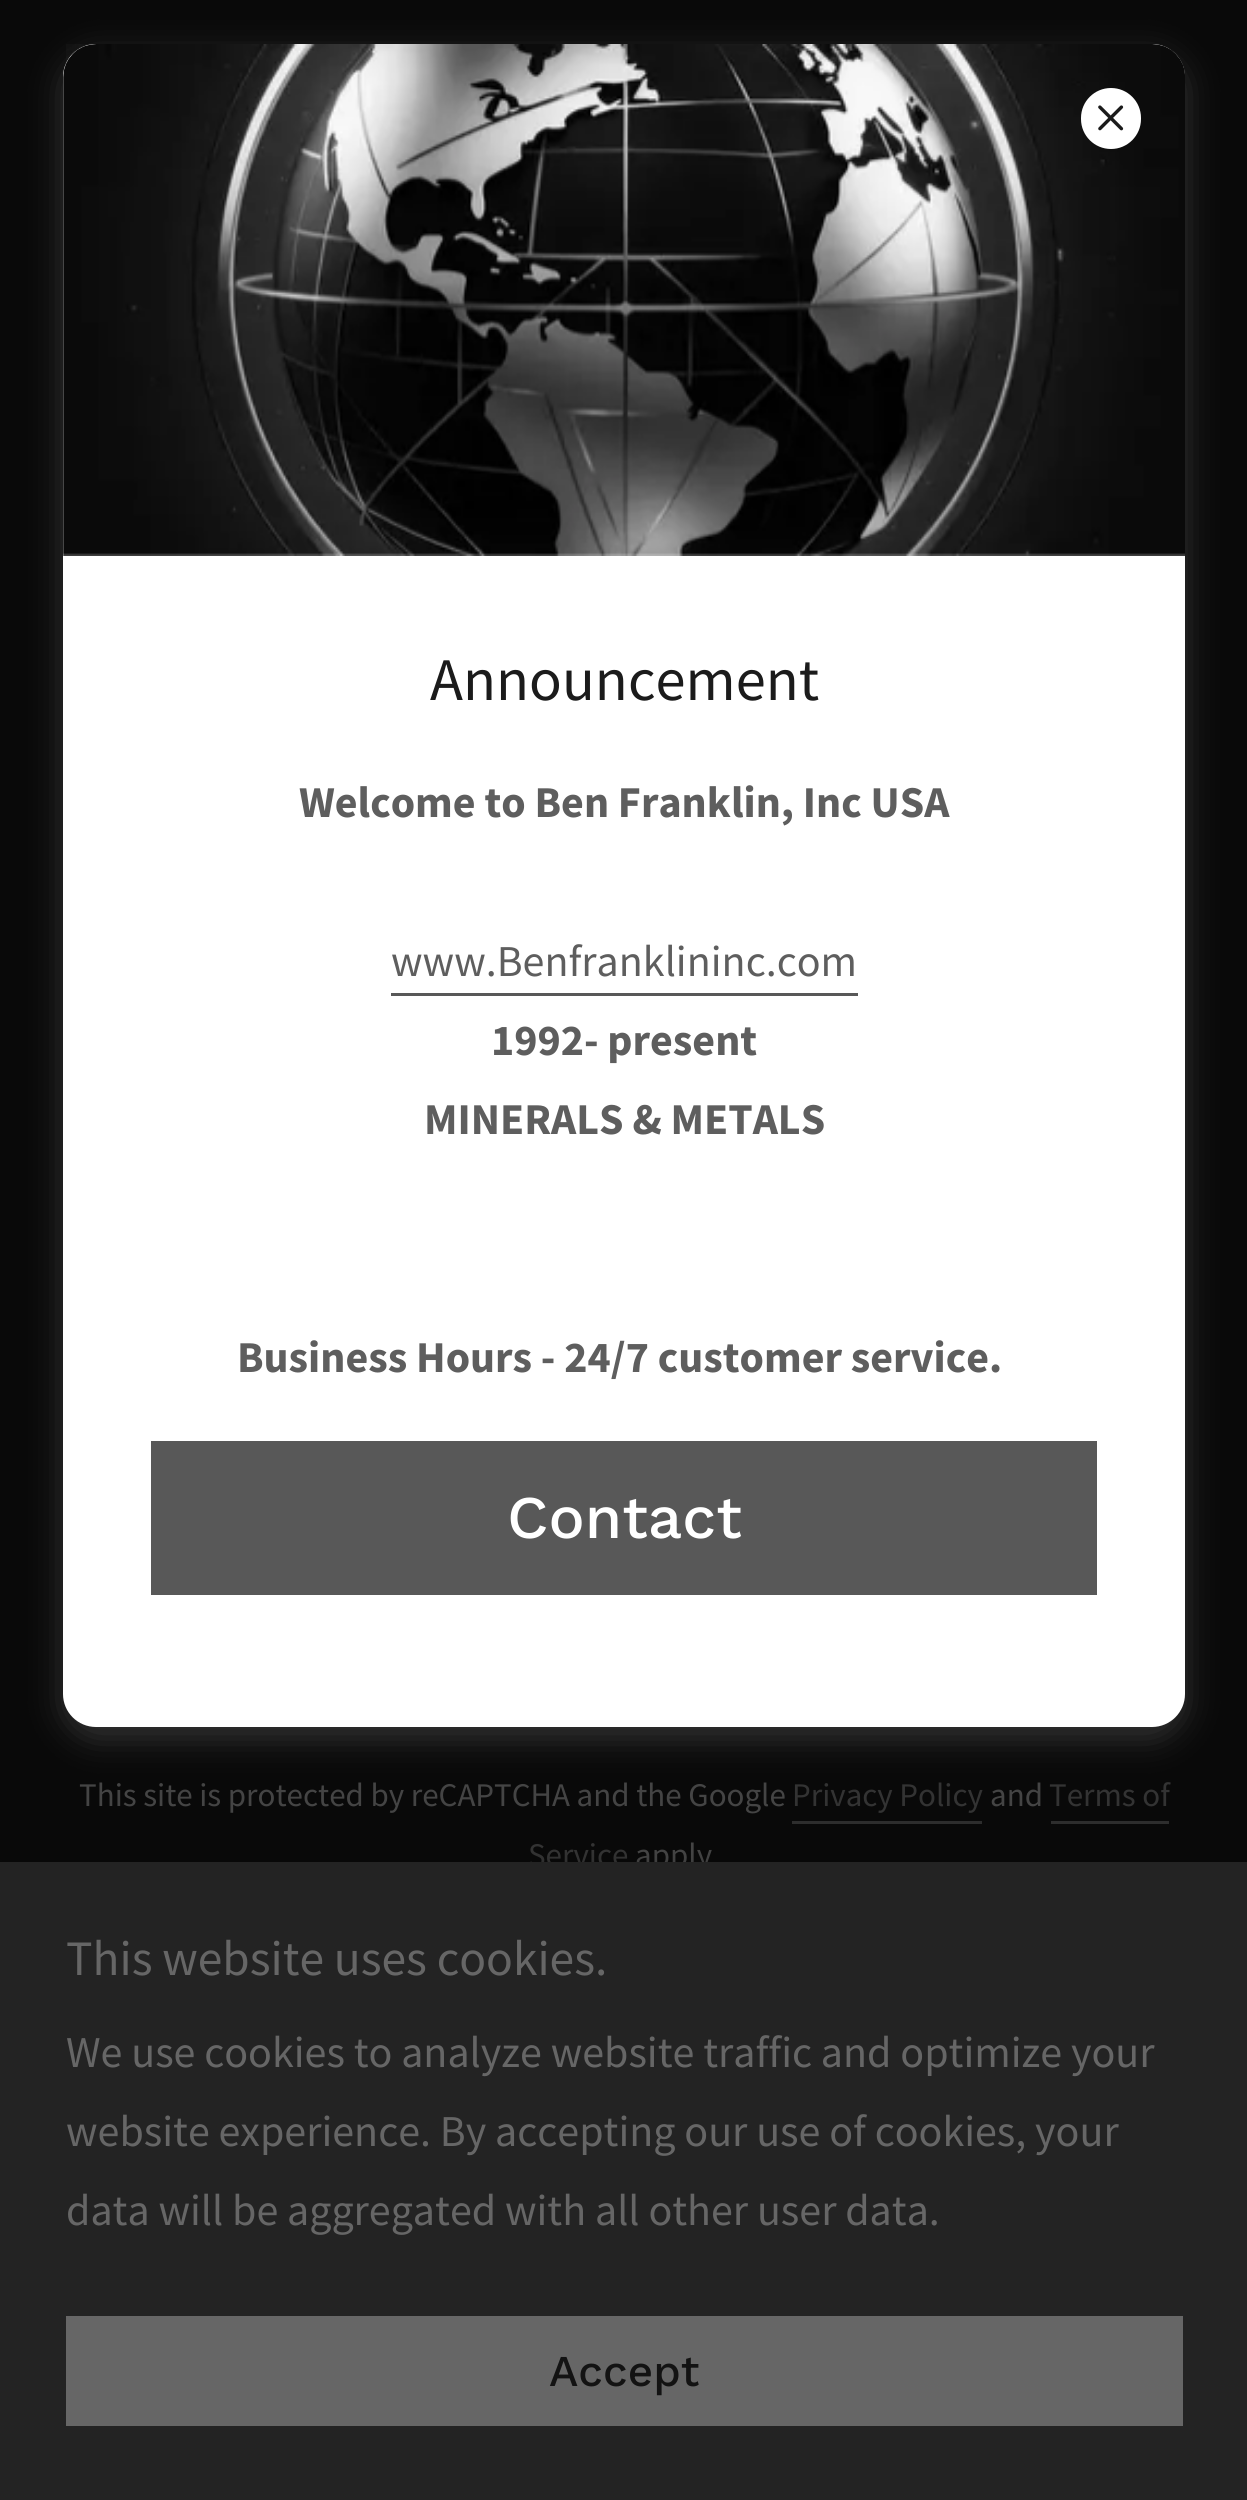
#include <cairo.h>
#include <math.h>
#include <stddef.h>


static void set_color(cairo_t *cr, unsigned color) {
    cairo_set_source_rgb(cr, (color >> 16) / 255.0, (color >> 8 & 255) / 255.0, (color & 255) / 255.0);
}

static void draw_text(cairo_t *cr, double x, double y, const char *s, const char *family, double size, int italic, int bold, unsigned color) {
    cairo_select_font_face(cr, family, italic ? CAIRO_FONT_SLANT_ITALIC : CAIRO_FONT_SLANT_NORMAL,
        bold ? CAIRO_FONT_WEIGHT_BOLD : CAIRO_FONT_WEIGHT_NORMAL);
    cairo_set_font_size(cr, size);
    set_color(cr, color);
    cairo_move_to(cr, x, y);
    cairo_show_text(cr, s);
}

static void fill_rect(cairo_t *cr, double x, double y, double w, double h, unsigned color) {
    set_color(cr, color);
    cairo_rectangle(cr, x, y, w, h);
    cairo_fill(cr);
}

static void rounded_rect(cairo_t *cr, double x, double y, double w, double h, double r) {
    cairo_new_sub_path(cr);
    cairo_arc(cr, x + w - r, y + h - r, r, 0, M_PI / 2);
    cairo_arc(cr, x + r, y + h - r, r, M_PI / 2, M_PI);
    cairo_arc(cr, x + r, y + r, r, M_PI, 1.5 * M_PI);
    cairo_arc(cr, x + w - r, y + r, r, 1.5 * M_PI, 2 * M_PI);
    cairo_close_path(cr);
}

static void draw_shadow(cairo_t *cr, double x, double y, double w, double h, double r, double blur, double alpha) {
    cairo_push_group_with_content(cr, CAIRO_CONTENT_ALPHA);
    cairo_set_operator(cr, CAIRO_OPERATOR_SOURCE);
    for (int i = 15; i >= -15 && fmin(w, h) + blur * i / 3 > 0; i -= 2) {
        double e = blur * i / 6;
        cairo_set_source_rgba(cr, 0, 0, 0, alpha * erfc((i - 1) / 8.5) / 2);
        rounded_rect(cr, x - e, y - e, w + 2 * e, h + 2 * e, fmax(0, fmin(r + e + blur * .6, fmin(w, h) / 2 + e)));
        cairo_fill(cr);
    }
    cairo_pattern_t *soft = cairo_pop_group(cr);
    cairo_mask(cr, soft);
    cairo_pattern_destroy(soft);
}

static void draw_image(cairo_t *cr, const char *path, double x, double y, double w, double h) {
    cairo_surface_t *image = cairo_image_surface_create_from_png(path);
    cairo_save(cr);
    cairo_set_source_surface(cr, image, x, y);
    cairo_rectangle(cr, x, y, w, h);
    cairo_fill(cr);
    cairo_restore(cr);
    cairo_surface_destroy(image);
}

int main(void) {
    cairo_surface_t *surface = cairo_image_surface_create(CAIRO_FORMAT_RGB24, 1247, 2500);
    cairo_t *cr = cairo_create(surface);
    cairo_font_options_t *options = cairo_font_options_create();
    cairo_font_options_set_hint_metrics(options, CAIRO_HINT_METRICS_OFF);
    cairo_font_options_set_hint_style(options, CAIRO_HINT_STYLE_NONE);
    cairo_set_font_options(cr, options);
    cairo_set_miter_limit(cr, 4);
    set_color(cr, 0x090909);
    cairo_paint(cr);
    draw_image(cr, "assets/img1.png", 66, 44, 30, 20);
    set_color(cr, 0x757575);
    draw_shadow(cr, 63, 55, 1122, 1683, 33, 16.5, 0.4);
    set_color(cr, 0xFFFFFF);
    rounded_rect(cr, 63, 44, 1122, 1683, 33);
    cairo_fill(cr);
    draw_image(cr, "assets/img3.png", 63, 44, 1122, 512);
    rounded_rect(cr, 1081, 88, 60, 61, 30);
    cairo_fill(cr);
    draw_image(cr, "assets/img2.png", 1098, 105, 26, 26);
    draw_text(cr, 430, 700, "Announcement", "Source Sans Pro", 60.5, 0, 0, 0x1B1B1B);
    draw_text(cr, 299, 817, "Welcome to Ben Franklin, Inc USA", "Source Sans Pro", 44, 0, 1, 0x5E5E5E);
    draw_text(cr, 391, 976, "www.Benfranklininc.com", "Source Sans Pro", 44, 0, 0, 0x5E5E5E);
    fill_rect(cr, 391, 993, 467, 3, 0x585858);
    draw_text(cr, 491, 1055, "1992- present", "Source Sans Pro", 44, 0, 1, 0x5E5E5E);
    draw_text(cr, 424, 1134, "MINERALS & METALS", "Source Sans Pro", 44, 0, 1, 0x5E5E5E);
    draw_text(cr, 237, 1372, "Business Hours - 24/7 customer service.", "Source Sans Pro", 44, 0, 1, 0x5E5E5E);
    fill_rect(cr, 151, 1441, 946, 154, 0x585858);
    draw_text(cr, 507, 1538, "Contact", "Work Sans Medium", 60.5, 0, 0, 0xFFFFFF);
    draw_text(cr, 79, 1806, "This site is protected by reCAPTCHA and the Google", "Source Sans Pro", 33, 0, 0, 0x444444);
    draw_text(cr, 792, 1806, "Privacy Policy", "Source Sans Pro", 33, 0, 0, 0x333333);
    fill_rect(cr, 792, 1821, 190, 3, 0x2D2D2D);
    draw_text(cr, 990, 1806, "and", "Source Sans Pro", 33, 0, 0, 0x444444);
    draw_text(cr, 1049, 1806, "Terms of", "Source Sans Pro", 33, 0, 0, 0x333333);
    fill_rect(cr, 1051, 1821, 118, 3, 0x2D2D2D);
    draw_text(cr, 528, 1866, "Service", "Source Sans Pro", 33, 0, 0, 0x333333);
    draw_text(cr, 635, 1866, "apply", "Source Sans Pro", 33, 0, 0, 0x444444);
    set_color(cr, 0x000000);
    draw_shadow(cr, 0, 1867, 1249, 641, 0, 8, 0.3);
    fill_rect(cr, 0, 1862, 1247, 638, 0x232323);
    draw_text(cr, 66, 1975, "This website uses cookies.", "Source Sans Pro", 49.5, 0, 0, 0x666666);
    draw_text(cr, 66, 2067, "We use cookies to analyze website traffic and optimize your", "Source Sans Pro", 44, 0, 0, 0x666666);
    draw_text(cr, 66, 2146, "website experience. By accepting our use of cookies, your", "Source Sans Pro", 44, 0, 0, 0x666666);
    draw_text(cr, 66, 2225, "data will be aggregated with all other user data.", "Source Sans Pro", 44, 0, 0, 0x666666);
    fill_rect(cr, 66, 2316, 1117, 110, 0x666666);
    draw_text(cr, 549, 2386, "Accept", "Work Sans Medium", 44, 0, 0, 0x131313);
    cairo_surface_write_to_png(surface, "output.png");
    cairo_font_options_destroy(options);
    cairo_destroy(cr);
    cairo_surface_destroy(surface);
    return 0;
}
